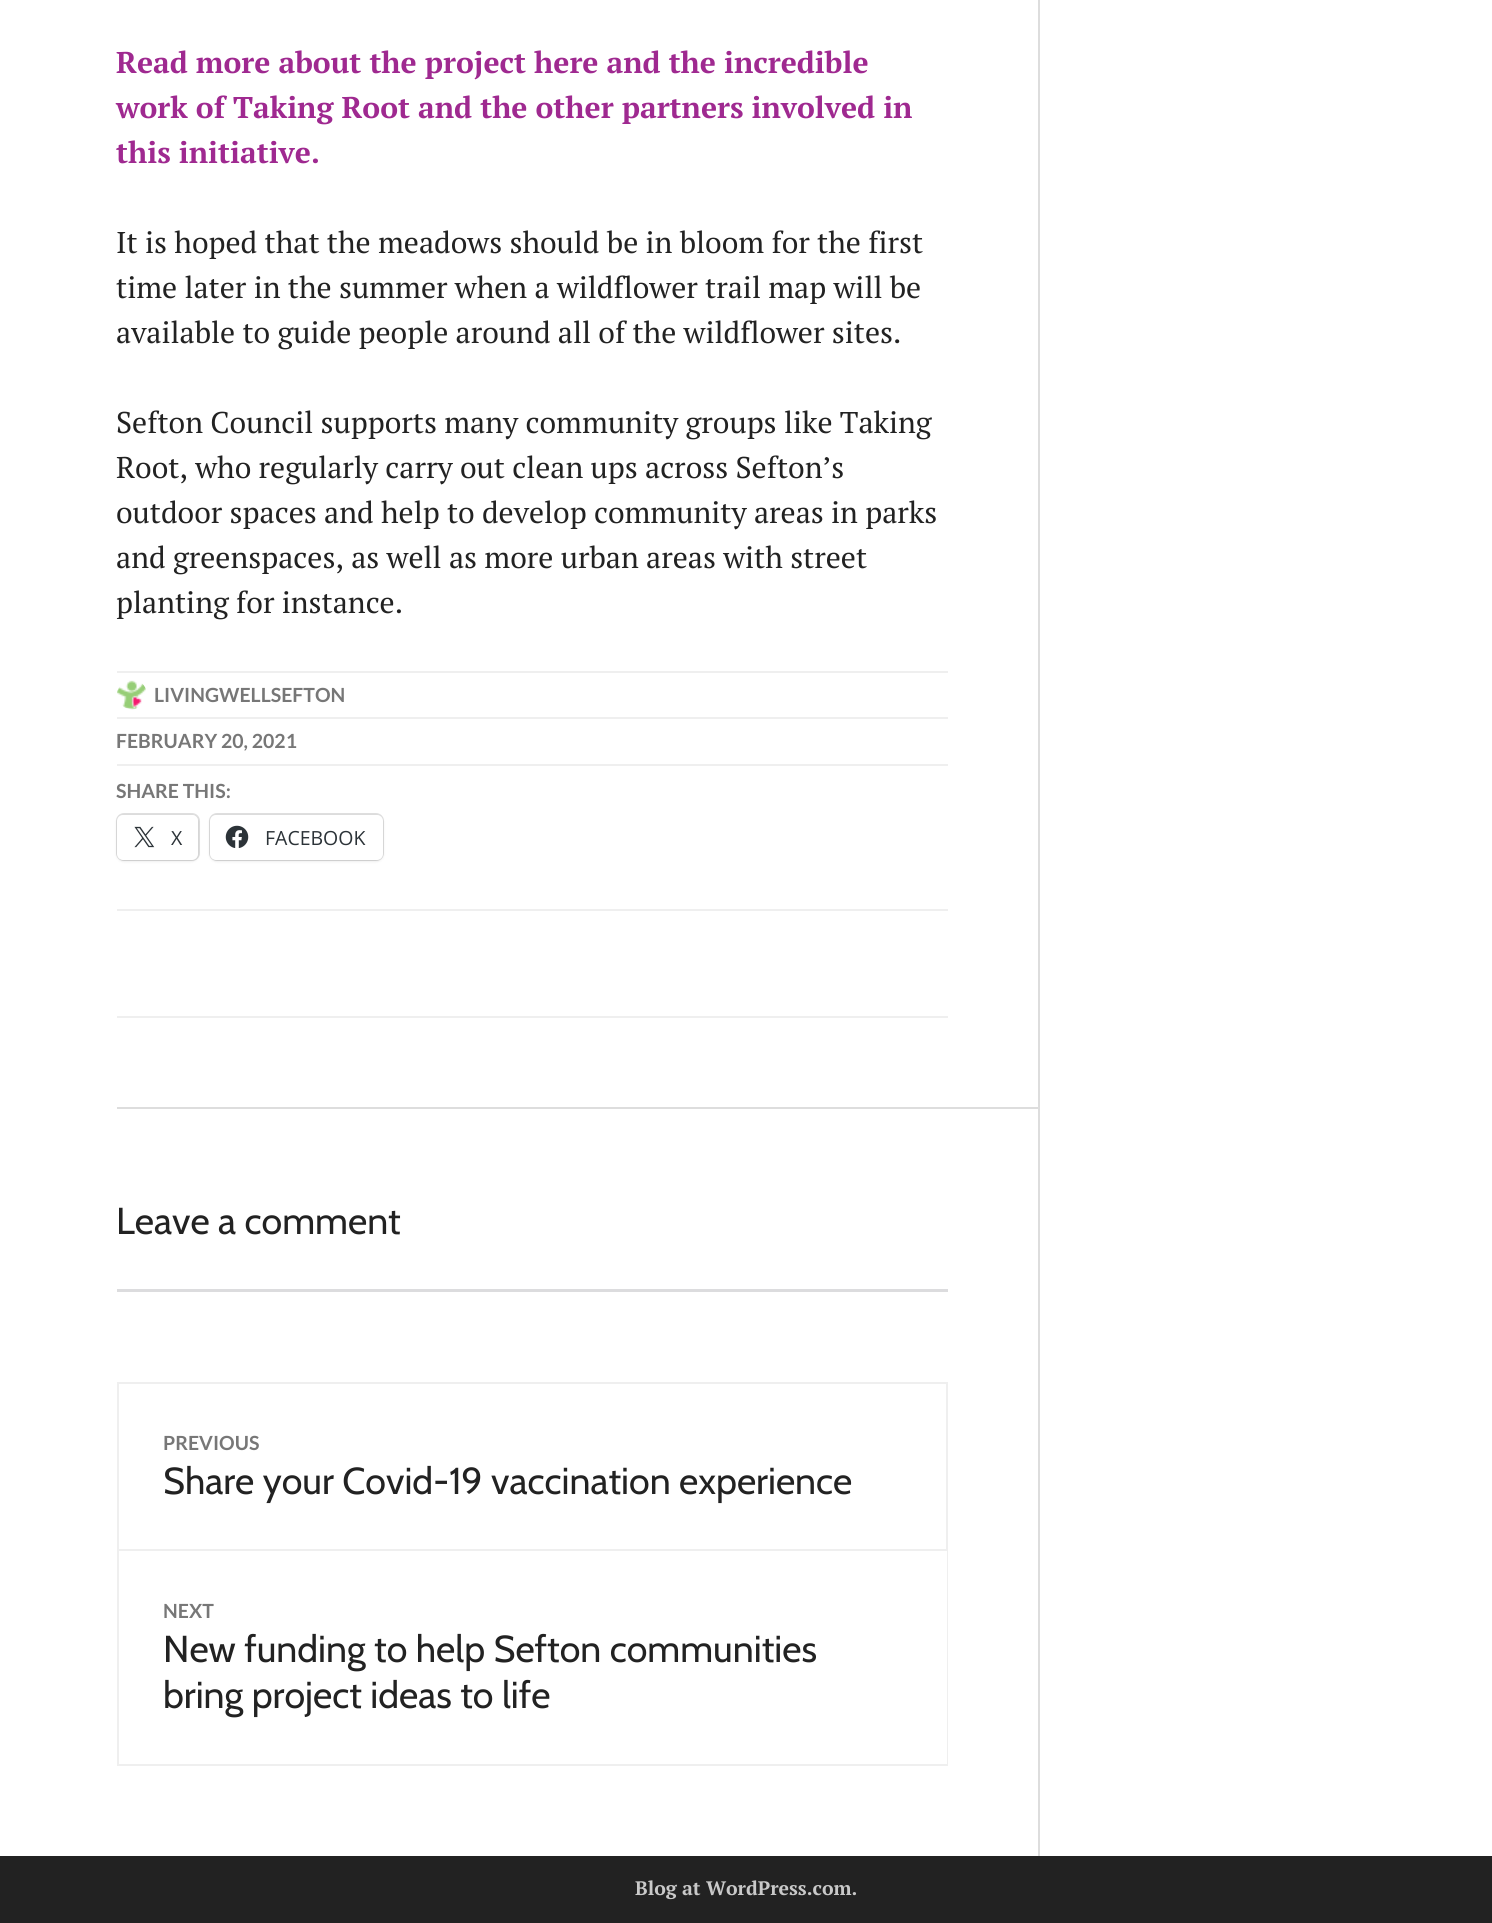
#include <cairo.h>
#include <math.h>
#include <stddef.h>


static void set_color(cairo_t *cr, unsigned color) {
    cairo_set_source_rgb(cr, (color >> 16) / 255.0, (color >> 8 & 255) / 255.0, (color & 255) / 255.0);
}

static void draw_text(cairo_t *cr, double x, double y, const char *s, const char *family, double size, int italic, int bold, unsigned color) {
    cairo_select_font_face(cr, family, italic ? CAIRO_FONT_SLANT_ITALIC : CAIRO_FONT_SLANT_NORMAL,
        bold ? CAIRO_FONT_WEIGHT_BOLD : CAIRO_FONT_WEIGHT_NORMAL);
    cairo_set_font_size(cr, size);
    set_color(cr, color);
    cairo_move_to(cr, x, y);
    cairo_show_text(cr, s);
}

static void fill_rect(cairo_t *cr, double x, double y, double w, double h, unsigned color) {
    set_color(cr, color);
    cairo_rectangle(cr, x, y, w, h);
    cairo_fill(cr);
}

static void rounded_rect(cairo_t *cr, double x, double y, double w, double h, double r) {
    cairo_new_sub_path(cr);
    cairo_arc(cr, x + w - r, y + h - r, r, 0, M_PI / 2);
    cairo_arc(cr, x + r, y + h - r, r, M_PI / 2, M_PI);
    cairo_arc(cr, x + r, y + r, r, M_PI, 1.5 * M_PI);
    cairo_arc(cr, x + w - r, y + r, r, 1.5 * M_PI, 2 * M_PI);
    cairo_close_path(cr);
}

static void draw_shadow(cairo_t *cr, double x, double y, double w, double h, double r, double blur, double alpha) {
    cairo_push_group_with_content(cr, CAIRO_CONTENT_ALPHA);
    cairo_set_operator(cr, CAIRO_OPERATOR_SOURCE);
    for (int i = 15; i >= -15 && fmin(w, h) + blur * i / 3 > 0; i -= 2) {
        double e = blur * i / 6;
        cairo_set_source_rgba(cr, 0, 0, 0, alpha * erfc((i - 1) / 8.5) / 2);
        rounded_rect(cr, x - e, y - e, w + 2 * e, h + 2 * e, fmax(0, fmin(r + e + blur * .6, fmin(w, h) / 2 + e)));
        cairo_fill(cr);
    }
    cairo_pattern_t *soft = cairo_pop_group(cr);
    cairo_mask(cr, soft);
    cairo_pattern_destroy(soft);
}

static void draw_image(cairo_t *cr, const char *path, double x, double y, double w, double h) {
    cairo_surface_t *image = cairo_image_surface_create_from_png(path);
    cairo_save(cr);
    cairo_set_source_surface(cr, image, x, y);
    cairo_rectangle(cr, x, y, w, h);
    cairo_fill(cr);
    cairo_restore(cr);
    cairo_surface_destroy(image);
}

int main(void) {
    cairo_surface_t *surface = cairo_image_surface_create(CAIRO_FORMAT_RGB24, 1492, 1923);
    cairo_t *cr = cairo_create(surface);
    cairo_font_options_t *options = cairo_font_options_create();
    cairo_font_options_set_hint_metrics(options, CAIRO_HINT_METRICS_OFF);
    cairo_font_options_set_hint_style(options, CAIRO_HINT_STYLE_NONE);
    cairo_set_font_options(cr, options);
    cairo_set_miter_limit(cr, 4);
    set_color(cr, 0xFFFFFF);
    cairo_paint(cr);
    fill_rect(cr, 1038, 0, 2, 1856, 0xDDDDDD);
    draw_text(cr, 116, 73, "Read more about the project here and the incredible", "PT Serif", 30, 0, 1, 0x9F2990);
    draw_text(cr, 116, 118, "work of Taking Root and the other partners involved in", "PT Serif", 30, 0, 1, 0x9F2990);
    draw_text(cr, 116, 163, "this initiative.", "PT Serif", 30, 0, 1, 0x9F2990);
    draw_text(cr, 116, 253, "It is hoped that the meadows should be in bloom for the first", "PT Serif", 30, 0, 0, 0x222222);
    draw_text(cr, 116, 298, "time later in the summer when a wildflower trail map will be", "PT Serif", 30, 0, 0, 0x222222);
    draw_text(cr, 116, 343, "available to guide people around all of the wildflower sites.", "PT Serif", 30, 0, 0, 0x222222);
    draw_text(cr, 116, 433, "Sefton Council supports many community groups like Taking", "PT Serif", 30, 0, 0, 0x222222);
    draw_text(cr, 116, 478, "Root, who regularly carry out clean ups across Sefton’s", "PT Serif", 30, 0, 0, 0x222222);
    draw_text(cr, 116, 523, "outdoor spaces and help to develop community areas in parks", "PT Serif", 30, 0, 0, 0x222222);
    draw_text(cr, 116, 568, "and greenspaces, as well as more urban areas with street", "PT Serif", 30, 0, 0, 0x222222);
    draw_text(cr, 116, 613, "planting for instance.", "PT Serif", 30, 0, 0, 0x222222);
    fill_rect(cr, 117, 671, 831, 2, 0xEFEFEF);
    draw_image(cr, "assets/img1.png", 117, 680, 29, 30);
    draw_text(cr, 154, 702, "LIVINGWELLSEFTON", "Lato", 19.5, 0, 1, 0x777777);
    fill_rect(cr, 117, 717, 831, 2, 0xEFEFEF);
    fill_rect(cr, 117, 764, 831, 2, 0xEFEFEF);
    draw_text(cr, 116, 748, "FEBRUARY 20, 2021", "Lato", 19.5, 0, 1, 0x777777);
    fill_rect(cr, 117, 909, 831, 2, 0xEFEFEF);
    draw_text(cr, 116, 798, "SHARE THIS:", "Lato", 19.5, 0, 1, 0x777777);
    rounded_rect(cr, 117, 814, 82, 46, 7);
    set_color(cr, 0xE0E0E0);
    cairo_stroke(cr);
    set_color(cr, 0x000000);
    draw_shadow(cr, 117, 816, 81, 45, 6, 1.5, 0.12);
    set_color(cr, 0xFFFFFF);
    rounded_rect(cr, 117, 815, 81, 45, 6);
    cairo_fill(cr);
    draw_image(cr, "assets/img2.png", 134, 826, 21, 22);
    draw_text(cr, 171, 845, "X", "Open Sans", 19.5, 0, 0, 0x2C3338);
    rounded_rect(cr, 210, 814, 173, 46, 7);
    set_color(cr, 0xE0E0E0);
    cairo_stroke(cr);
    set_color(cr, 0x000000);
    draw_shadow(cr, 210, 816, 173, 45, 6, 1.5, 0.12);
    set_color(cr, 0xFFFFFF);
    rounded_rect(cr, 210, 815, 173, 45, 6);
    cairo_fill(cr);
    draw_image(cr, "assets/img3.png", 225, 825, 24, 23);
    draw_text(cr, 265, 845, "FACEBOOK", "Open Sans", 19.5, 0, 0, 0x2C3338);
    fill_rect(cr, 117, 1016, 831, 2, 0xEFEFEF);
    fill_rect(cr, 117, 1107, 921, 2, 0xDDDDDD);
    draw_text(cr, 116, 1234, "Leave a comment", "Cabin", 37.5, 0, 0, 0x222222);
    fill_rect(cr, 117, 1289, 831, 3, 0xDCDCDE);
    cairo_rectangle(cr, 118, 1383, 829, 167);
    set_color(cr, 0xEFEFEF);
    cairo_stroke(cr);
    draw_text(cr, 163, 1450, "PREVIOUS", "Lato", 19.5, 0, 1, 0x777777);
    draw_text(cr, 163, 1494, "Share your Covid-19 vaccination experience", "Cabin", 37.5, 0, 0, 0x222222);
    fill_rect(cr, 947, 1551, 1, 215, 0xEFEFEF);
    fill_rect(cr, 117, 1764, 831, 2, 0xEFEFEF);
    fill_rect(cr, 117, 1551, 2, 215, 0xEFEFEF);
    draw_text(cr, 163, 1618, "NEXT", "Lato", 19.5, 0, 1, 0x777777);
    draw_text(cr, 163, 1662, "New funding to help Sefton communities", "Cabin", 37.5, 0, 0, 0x222222);
    draw_text(cr, 163, 1708, "bring project ideas to life", "Cabin", 37.5, 0, 0, 0x222222);
    fill_rect(cr, 0, 1856, 1492, 67, 0x222222);
    draw_text(cr, 635, 1895, "Blog at WordPress.com.", "PT Serif", 19.5, 0, 1, 0xC9C9C9);
    cairo_surface_write_to_png(surface, "output.png");
    cairo_font_options_destroy(options);
    cairo_destroy(cr);
    cairo_surface_destroy(surface);
    return 0;
}
